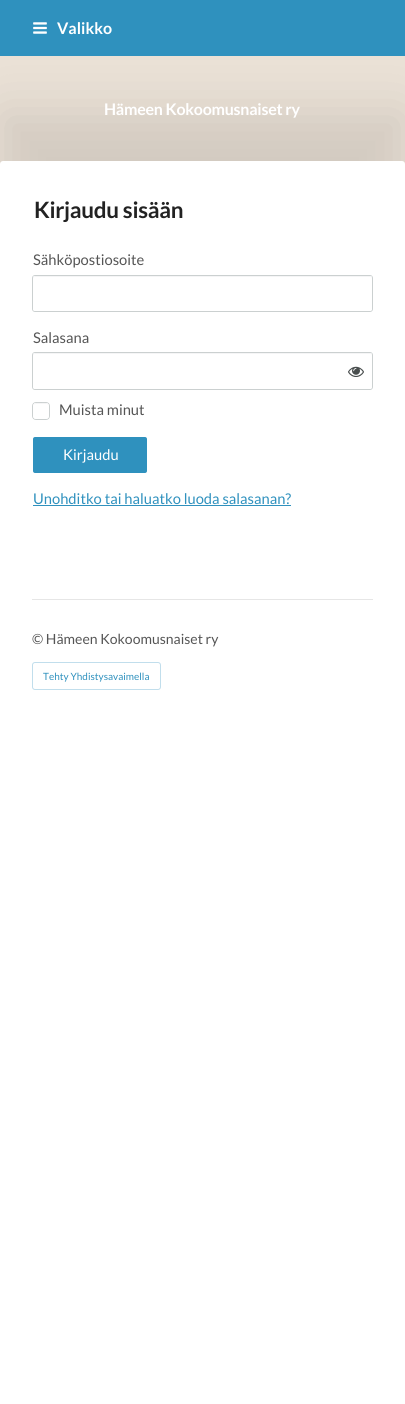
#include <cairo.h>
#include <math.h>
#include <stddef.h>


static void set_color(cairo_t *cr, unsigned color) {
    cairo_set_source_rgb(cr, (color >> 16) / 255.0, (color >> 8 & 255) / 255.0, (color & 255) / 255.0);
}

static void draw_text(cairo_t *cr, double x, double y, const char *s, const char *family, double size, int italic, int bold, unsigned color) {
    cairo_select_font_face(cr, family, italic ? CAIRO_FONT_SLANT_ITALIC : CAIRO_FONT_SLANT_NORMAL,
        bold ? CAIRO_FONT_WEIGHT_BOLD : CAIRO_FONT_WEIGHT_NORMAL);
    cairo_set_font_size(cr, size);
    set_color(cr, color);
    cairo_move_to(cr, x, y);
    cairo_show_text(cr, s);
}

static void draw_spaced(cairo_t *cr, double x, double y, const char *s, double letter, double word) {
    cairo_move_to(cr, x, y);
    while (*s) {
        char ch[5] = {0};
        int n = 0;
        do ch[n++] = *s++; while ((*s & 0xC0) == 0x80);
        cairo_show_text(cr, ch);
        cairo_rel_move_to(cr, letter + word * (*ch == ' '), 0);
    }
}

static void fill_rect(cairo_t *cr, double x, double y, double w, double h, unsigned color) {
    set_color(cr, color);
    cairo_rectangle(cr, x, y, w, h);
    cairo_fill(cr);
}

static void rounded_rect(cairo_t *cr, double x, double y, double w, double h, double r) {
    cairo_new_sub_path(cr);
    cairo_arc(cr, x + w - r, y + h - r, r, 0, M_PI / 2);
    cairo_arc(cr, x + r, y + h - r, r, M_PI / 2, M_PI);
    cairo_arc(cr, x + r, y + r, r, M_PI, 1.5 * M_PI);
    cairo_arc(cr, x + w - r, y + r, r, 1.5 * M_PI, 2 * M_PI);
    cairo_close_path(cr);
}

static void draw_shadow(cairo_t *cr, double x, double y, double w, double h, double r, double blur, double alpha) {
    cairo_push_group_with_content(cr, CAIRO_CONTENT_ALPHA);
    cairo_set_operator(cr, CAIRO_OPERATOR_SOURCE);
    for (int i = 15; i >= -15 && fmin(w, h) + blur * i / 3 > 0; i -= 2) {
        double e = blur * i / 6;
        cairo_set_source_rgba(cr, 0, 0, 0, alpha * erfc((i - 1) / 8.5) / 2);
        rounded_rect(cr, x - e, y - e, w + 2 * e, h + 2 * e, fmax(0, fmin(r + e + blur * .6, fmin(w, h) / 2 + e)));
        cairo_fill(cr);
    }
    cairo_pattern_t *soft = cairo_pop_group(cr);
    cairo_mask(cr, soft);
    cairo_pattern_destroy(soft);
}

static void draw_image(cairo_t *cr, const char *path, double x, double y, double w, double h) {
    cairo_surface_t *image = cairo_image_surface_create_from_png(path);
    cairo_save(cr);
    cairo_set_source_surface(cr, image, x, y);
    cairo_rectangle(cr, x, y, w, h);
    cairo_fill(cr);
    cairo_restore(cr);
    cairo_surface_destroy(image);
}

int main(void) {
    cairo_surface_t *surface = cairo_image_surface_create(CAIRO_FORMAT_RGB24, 405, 1404);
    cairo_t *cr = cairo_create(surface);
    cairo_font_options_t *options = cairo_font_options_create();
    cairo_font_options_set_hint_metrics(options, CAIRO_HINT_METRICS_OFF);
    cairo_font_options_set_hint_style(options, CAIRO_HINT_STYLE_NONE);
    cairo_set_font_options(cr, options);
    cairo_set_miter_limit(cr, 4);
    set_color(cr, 0xFFFFFF);
    cairo_paint(cr);
    fill_rect(cr, 0, 56, 405, 108, 0xEAE1D6);
    set_color(cr, 0x000000);
    draw_shadow(cr, 0, 111, 405, 400, 3, 25, 0.1);
    fill_rect(cr, 0, 0, 405, 56, 0x2F91BE);
    draw_image(cr, "assets/img1.png", 33, 22, 14, 12);
    draw_text(cr, 57, 34, "Valikko", "Lato", 16, 0, 1, 0xFFFFFF);
    draw_spaced(cr, 104, 115, "Hämeen Kokoomusnaiset ry", -0.25, 0);
    rounded_rect(cr, 0, 161, 405, 400, 3);
    cairo_fill(cr);
    cairo_set_font_size(cr, 22.5);
    set_color(cr, 0x222222);
    draw_spaced(cr, 34, 218, "Kirjaudu sisään", -0.3, 0);
    draw_text(cr, 33, 265, "Sähköpostiosoite", "Lato", 14.75, 0, 0, 0x555555);
    rounded_rect(cr, 32.5, 275.5, 340, 36, 2.5);
    set_color(cr, 0xCBD0D0);
    cairo_set_line_width(cr, 1);
    cairo_stroke(cr);
    set_color(cr, 0xFFFFFF);
    rounded_rect(cr, 33, 276, 339, 35, 2);
    cairo_fill(cr);
    set_color(cr, 0xF5F5F6);
    cairo_new_path(cr);
    cairo_move_to(cr, 35, 277);
    cairo_line_to(cr, 370, 277);
    cairo_curve_to(cr, 371, 277, 372, 278, 372, 279);
    cairo_curve_to(cr, 372, 278, 372, 276, 370, 276);
    cairo_line_to(cr, 35, 276);
    cairo_line_to(cr, 33, 277);
    cairo_line_to(cr, 33, 279);
    cairo_curve_to(cr, 33, 278, 34, 277, 35, 277);
    cairo_close_path(cr);
    cairo_fill(cr);
    draw_text(cr, 33, 343, "Salasana", "Lato", 14.75, 0, 0, 0x555555);
    rounded_rect(cr, 32.5, 352.5, 340, 37, 2.5);
    set_color(cr, 0xCBD0D0);
    cairo_stroke(cr);
    set_color(cr, 0xFFFFFF);
    rounded_rect(cr, 33, 353, 339, 36, 2);
    cairo_fill(cr);
    set_color(cr, 0xF5F5F6);
    cairo_new_path(cr);
    cairo_move_to(cr, 35, 354);
    cairo_line_to(cr, 370, 354);
    cairo_curve_to(cr, 371, 354, 372, 355, 372, 356);
    cairo_curve_to(cr, 372, 355, 372, 353, 370, 353);
    cairo_line_to(cr, 35, 353);
    cairo_line_to(cr, 33, 354);
    cairo_line_to(cr, 33, 356);
    cairo_curve_to(cr, 33, 355, 34, 354, 35, 354);
    cairo_close_path(cr);
    cairo_fill(cr);
    draw_image(cr, "assets/img2.png", 348, 366, 16, 11);
    rounded_rect(cr, 32.5, 402.5, 17, 17, 3.5);
    set_color(cr, 0xCBD0D0);
    cairo_stroke(cr);
    set_color(cr, 0xFFFFFF);
    rounded_rect(cr, 33, 403, 16, 16, 3);
    cairo_fill(cr);
    set_color(cr, 0xF5F5F6);
    cairo_new_path(cr);
    cairo_move_to(cr, 36, 404);
    cairo_line_to(cr, 47, 404);
    cairo_curve_to(cr, 48, 404.5, 49, 405.5, 49, 406.5);
    cairo_curve_to(cr, 49, 402, 44.5, 403, 41, 403);
    cairo_curve_to(cr, 37, 403, 33, 402, 33, 407);
    cairo_curve_to(cr, 33, 405, 34, 404, 36, 404);
    cairo_close_path(cr);
    cairo_fill(cr);
    draw_text(cr, 59, 415, "Muista minut", "Lato", 14.75, 0, 0, 0x555555);
    set_color(cr, 0x2F91BE);
    rounded_rect(cr, 33, 437, 114, 36, 2);
    cairo_fill(cr);
    draw_text(cr, 63, 460, "Kirjaudu", "Lato", 14.75, 0, 0, 0xFFFFFF);
    draw_text(cr, 33, 504, "Unohditko tai haluatko luoda salasanan?", "Lato", 14.75, 0, 0, 0x2F91BE);
    fill_rect(cr, 33, 505, 258, 1, 0x2F91BE);
    fill_rect(cr, 32, 599, 341, 1, 0xE6E6E6);
    draw_text(cr, 32, 644, "© Hämeen Kokoomusnaiset ry", "Lato", 14, 0, 0, 0x555555);
    rounded_rect(cr, 32.5, 662.5, 128, 27, 2.5);
    set_color(cr, 0xC1DEEC);
    cairo_stroke(cr);
    draw_text(cr, 43, 680, "Tehty Yhdistysavaimella", "Lato", 10, 0, 0, 0x2F91BE);
    cairo_surface_write_to_png(surface, "output.png");
    cairo_font_options_destroy(options);
    cairo_destroy(cr);
    cairo_surface_destroy(surface);
    return 0;
}
